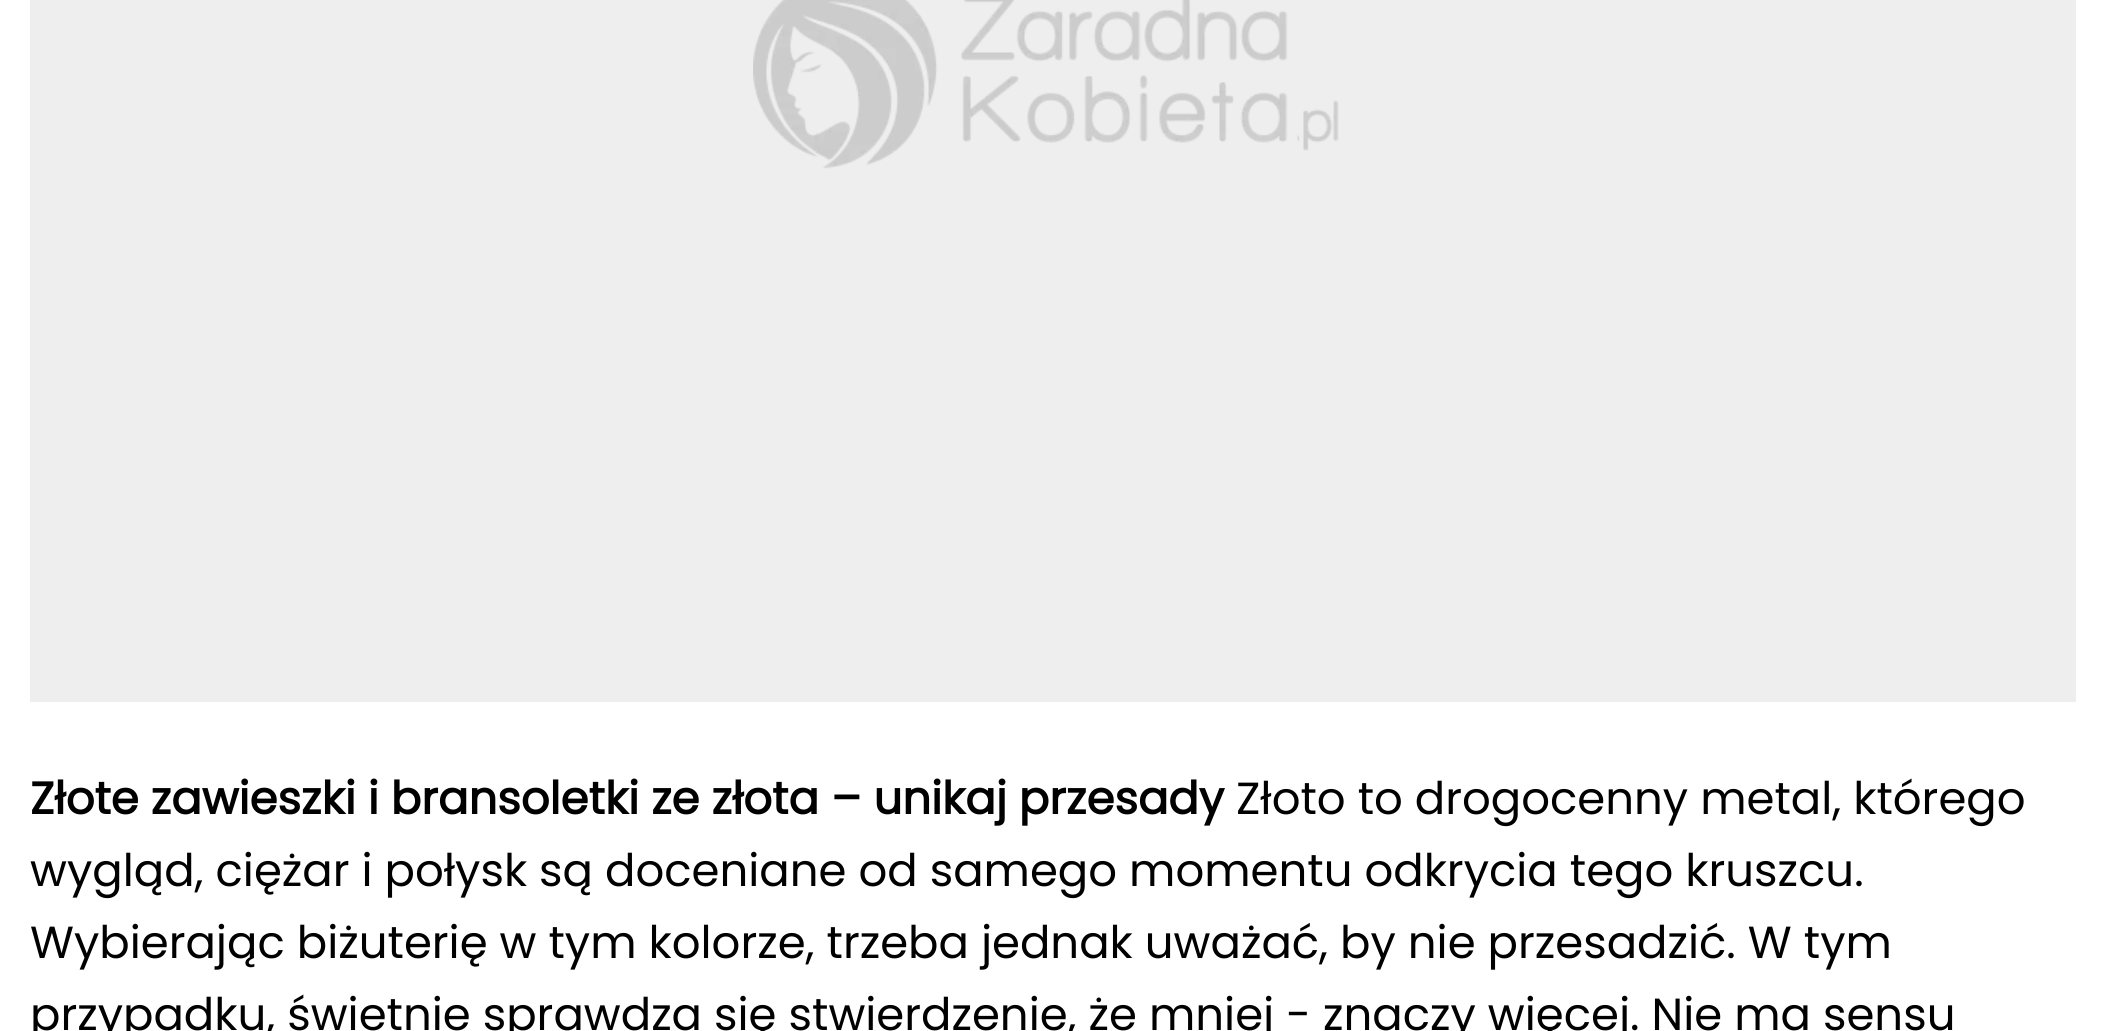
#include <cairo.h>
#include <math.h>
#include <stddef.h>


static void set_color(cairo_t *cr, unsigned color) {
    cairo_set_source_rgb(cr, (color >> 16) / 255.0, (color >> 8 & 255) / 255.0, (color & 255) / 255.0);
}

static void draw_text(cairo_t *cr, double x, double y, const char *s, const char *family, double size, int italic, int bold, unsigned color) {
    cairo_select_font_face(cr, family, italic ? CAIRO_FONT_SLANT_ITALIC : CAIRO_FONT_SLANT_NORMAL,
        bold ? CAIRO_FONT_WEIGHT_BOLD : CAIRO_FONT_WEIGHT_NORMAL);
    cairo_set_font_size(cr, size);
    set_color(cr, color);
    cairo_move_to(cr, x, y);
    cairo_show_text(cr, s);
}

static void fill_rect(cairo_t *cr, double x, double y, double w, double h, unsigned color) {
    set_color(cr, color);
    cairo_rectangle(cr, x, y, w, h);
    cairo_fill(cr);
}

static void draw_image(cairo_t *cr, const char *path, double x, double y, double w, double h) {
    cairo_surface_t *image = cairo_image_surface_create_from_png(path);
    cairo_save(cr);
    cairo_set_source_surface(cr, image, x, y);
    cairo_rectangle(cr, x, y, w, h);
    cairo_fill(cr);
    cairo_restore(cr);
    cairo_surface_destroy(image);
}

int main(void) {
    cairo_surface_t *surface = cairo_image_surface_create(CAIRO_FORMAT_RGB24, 2106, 1031);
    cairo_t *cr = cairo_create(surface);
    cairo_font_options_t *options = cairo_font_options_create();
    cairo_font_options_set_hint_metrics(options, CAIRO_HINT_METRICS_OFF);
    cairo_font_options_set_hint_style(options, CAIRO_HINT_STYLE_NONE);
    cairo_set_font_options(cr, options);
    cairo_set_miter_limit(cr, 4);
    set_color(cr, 0xFFFFFF);
    cairo_paint(cr);
    fill_rect(cr, 30, 0, 2046, 702, 0xEEEEEE);
    draw_image(cr, "assets/img1.png", 753, 0, 586, 169);
    draw_text(cr, 30, 814, "Złote zawieszki i bransoletki ze złota – unikaj przesady", "Poppins", 45, 0, 1, 0x000000);
    draw_text(cr, 1236, 814, "Złoto to drogocenny metal, którego", "Poppins", 45, 0, 0, 0x000000);
    draw_text(cr, 30, 886, "wygląd, ciężar i połysk są doceniane od samego momentu odkrycia tego kruszcu.", "Poppins", 45, 0, 0, 0x000000);
    draw_text(cr, 30, 958, "Wybierając biżuterię w tym kolorze, trzeba jednak uważać, by nie przesadzić. W tym", "Poppins", 45, 0, 0, 0x000000);
    draw_text(cr, 30, 1030, "przypadku, świetnie sprawdza się stwierdzenie, że mniej - znaczy więcej. Nie ma sensu", "Poppins", 45, 0, 0, 0x000000);
    cairo_surface_write_to_png(surface, "output.png");
    cairo_font_options_destroy(options);
    cairo_destroy(cr);
    cairo_surface_destroy(surface);
    return 0;
}
